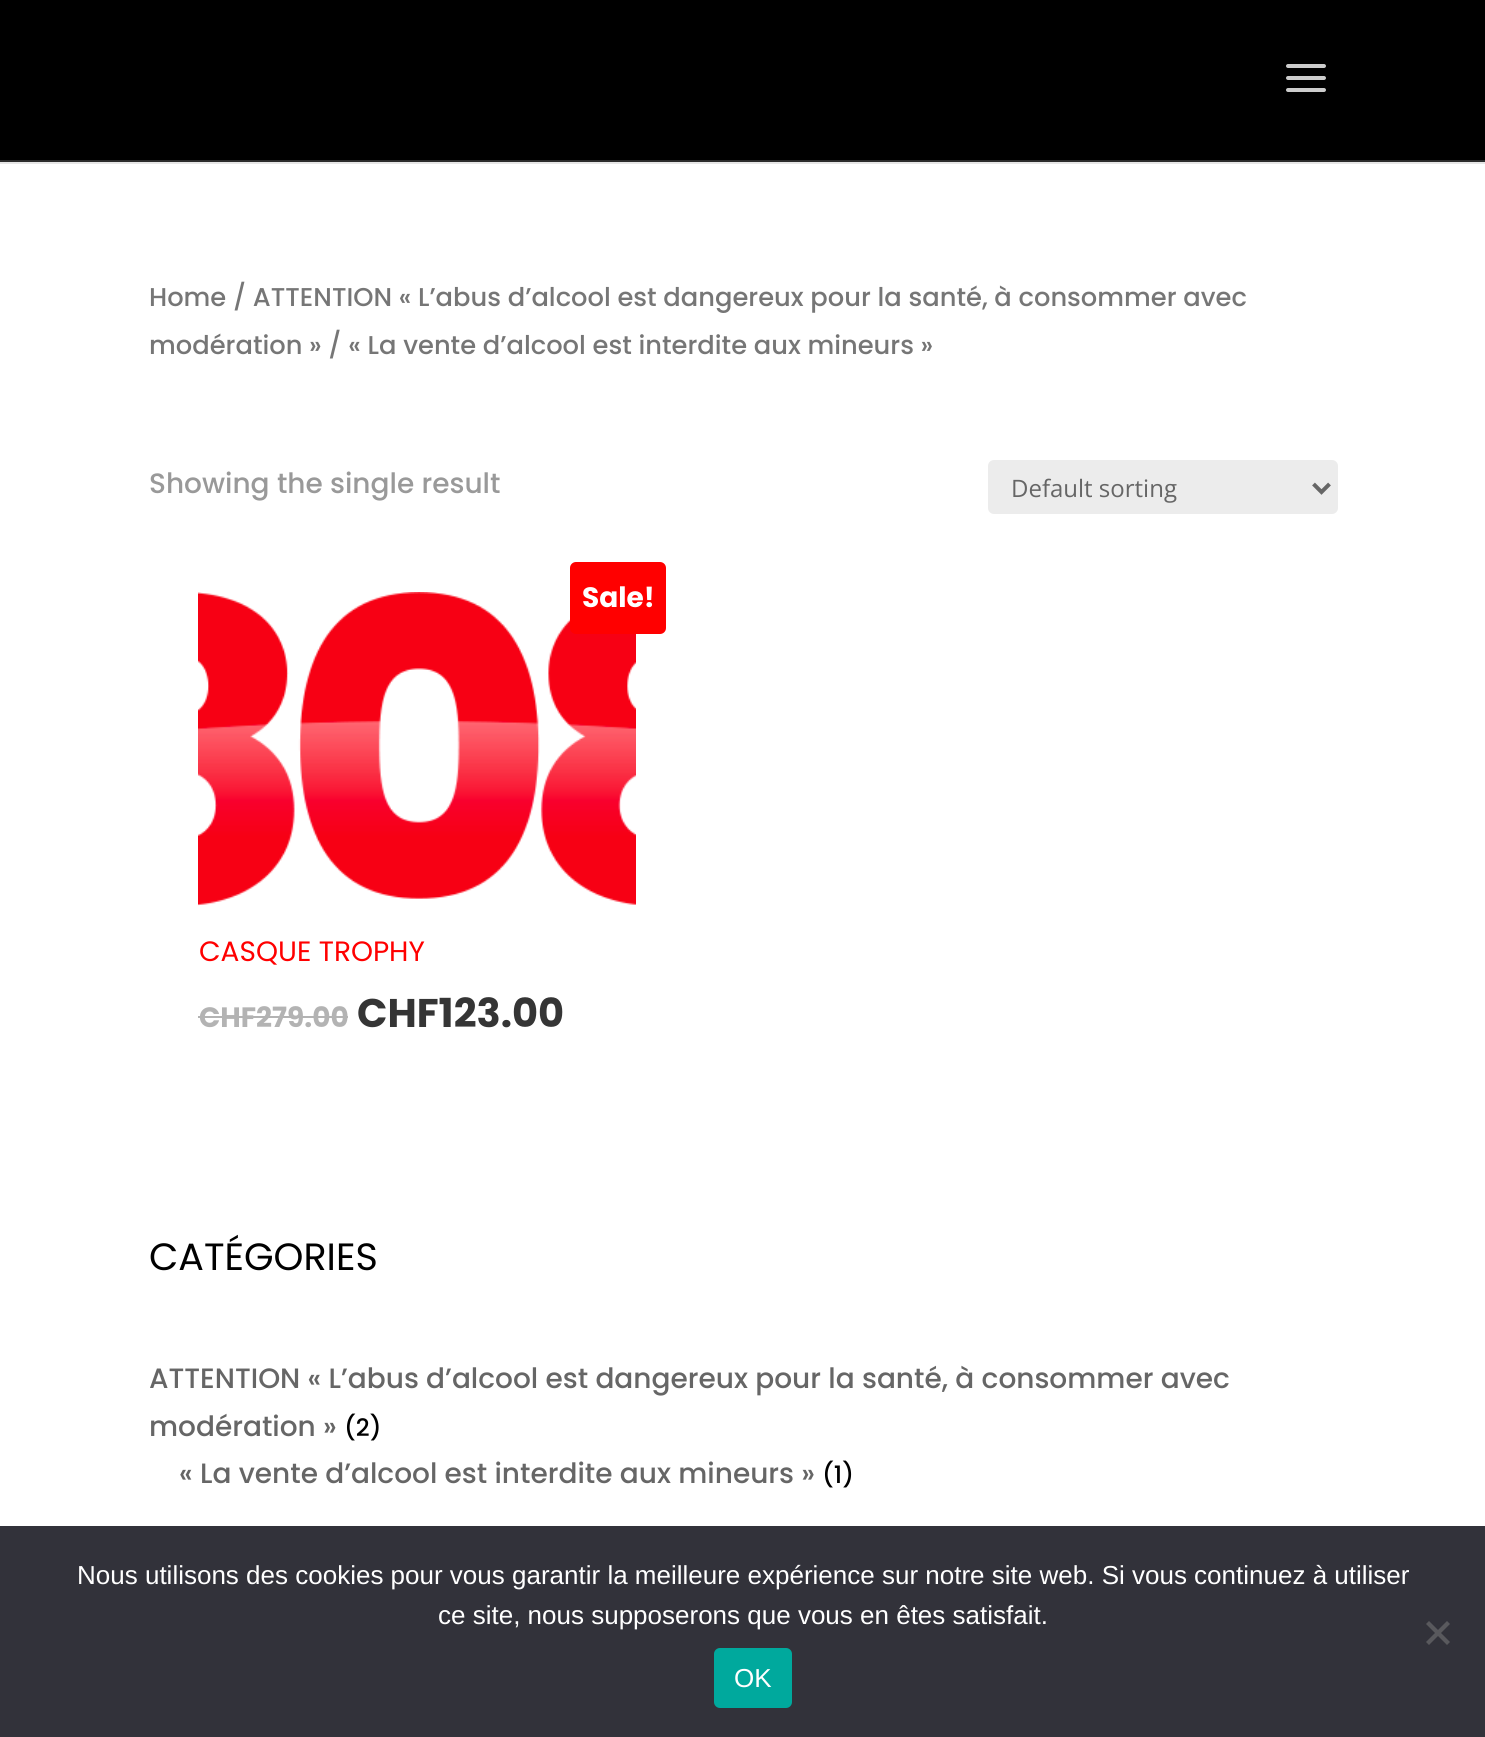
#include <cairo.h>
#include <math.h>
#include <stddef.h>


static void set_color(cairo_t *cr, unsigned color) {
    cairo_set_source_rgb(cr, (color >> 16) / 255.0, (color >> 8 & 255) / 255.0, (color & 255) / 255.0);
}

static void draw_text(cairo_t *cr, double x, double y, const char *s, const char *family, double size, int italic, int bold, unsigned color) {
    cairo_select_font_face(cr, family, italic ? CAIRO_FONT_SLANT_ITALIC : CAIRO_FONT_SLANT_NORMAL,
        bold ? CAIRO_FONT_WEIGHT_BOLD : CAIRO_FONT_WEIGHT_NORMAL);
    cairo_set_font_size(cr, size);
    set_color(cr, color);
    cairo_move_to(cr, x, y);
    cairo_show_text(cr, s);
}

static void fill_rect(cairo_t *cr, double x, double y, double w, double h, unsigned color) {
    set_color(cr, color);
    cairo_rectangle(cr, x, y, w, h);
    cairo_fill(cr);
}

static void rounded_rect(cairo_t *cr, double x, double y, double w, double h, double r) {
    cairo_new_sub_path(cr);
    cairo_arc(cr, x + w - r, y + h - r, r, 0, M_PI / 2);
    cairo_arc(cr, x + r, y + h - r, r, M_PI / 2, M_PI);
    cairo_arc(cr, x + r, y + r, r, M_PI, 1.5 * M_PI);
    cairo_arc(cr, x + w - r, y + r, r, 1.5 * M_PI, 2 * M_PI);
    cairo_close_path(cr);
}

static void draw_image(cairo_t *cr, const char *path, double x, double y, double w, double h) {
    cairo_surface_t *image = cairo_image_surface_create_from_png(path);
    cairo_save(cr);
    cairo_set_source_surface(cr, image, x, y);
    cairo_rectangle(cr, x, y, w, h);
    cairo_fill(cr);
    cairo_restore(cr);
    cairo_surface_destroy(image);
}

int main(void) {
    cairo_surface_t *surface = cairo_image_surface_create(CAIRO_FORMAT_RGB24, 1485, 1737);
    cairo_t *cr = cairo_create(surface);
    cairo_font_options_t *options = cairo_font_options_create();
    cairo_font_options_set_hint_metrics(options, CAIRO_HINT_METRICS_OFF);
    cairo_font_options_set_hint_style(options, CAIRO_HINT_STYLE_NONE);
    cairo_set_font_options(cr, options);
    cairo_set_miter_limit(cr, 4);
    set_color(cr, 0xFFFFFF);
    cairo_paint(cr);
    fill_rect(cr, 0, 162, 1485, 2, 0xE6E6E6);
    fill_rect(cr, 0, 0, 1485, 160, 0x000000);
    fill_rect(cr, 0, 160, 1485, 2, 0x2C2C2C);
    draw_image(cr, "assets/img1.png", 1286, 64, 40, 28);
    draw_text(cr, 149, 306, "Home / ATTENTION « L’abus d’alcool est dangereux pour la santé, à consommer avec", "Poppins Medium", 25.75, 0, 0, 0x767676);
    draw_text(cr, 149, 354, "modération » / « La vente d’alcool est interdite aux mineurs »", "Poppins Medium", 25.75, 0, 0, 0x767676);
    draw_text(cr, 149, 493, "Showing the single result", "Poppins Medium", 28, 0, 0, 0x999999);
    set_color(cr, 0xECECEC);
    rounded_rect(cr, 988, 460, 350, 54, 6);
    cairo_fill(cr);
    cairo_new_path(cr);
    cairo_move_to(cr, 1313.5, 484);
    cairo_line_to(cr, 1321.5, 492);
    cairo_line_to(cr, 1329.5, 484);
    set_color(cr, 0x666666);
    cairo_set_line_width(cr, 4);
    cairo_stroke(cr);
    draw_text(cr, 1011, 497, "Default sorting", "Open Sans", 24, 0, 0, 0x666666);
    draw_image(cr, "assets/img2.png", 198, 592, 438, 314);
    set_color(cr, 0xFF0000);
    rounded_rect(cr, 570, 562, 96, 72, 6);
    cairo_fill(cr);
    draw_text(cr, 582, 607, "Sale!", "Poppins", 28, 0, 1, 0xFFFFFF);
    draw_text(cr, 199, 961, "CASQUE TROPHY", "Poppins", 28, 0, 0, 0xFF0000);
    draw_text(cr, 199, 1027, "CHF279.00", "Poppins", 28, 0, 1, 0xB3B3B3);
    fill_rect(cr, 198, 1016, 150, 2, 0xB3B3B3);
    draw_text(cr, 357, 1027, "CHF123.00", "Poppins", 40, 0, 1, 0x353535);
    draw_text(cr, 149, 1270, "CATÉGORIES", "Poppins", 38, 0, 0, 0x000000);
    draw_text(cr, 149, 1388, "ATTENTION « L’abus d’alcool est dangereux pour la santé, à consommer avec", "Poppins Medium", 28, 0, 0, 0x666666);
    draw_text(cr, 149, 1436, "modération »", "Poppins Medium", 28, 0, 0, 0x666666);
    draw_text(cr, 344, 1436, "(2)", "Poppins Medium", 24, 0, 0, 0x000000);
    draw_text(cr, 179, 1483, "« La vente d’alcool est interdite aux mineurs »", "Poppins Medium", 28, 0, 0, 0x666666);
    draw_text(cr, 822, 1483, "(1)", "Poppins Medium", 24, 0, 0, 0x000000);
    fill_rect(cr, 0, 1526, 1485, 211, 0x32323A);
    draw_text(cr, 77, 1584, "Nous utilisons des cookies pour vous garantir la meilleure expérience sur notre site web. Si vous continuez à utiliser", "Liberation Sans", 26, 0, 0, 0xFFFFFF);
    draw_text(cr, 438, 1624, "ce site, nous supposerons que vous en êtes satisfait.", "Liberation Sans", 26, 0, 0, 0xFFFFFF);
    set_color(cr, 0x59595D);
    cairo_new_path(cr);
    cairo_move_to(cr, 1447, 1621);
    cairo_line_to(cr, 1450, 1624);
    cairo_line_to(cr, 1429, 1645);
    cairo_line_to(cr, 1426, 1642);
    cairo_close_path(cr);
    cairo_fill(cr);
    cairo_new_path(cr);
    cairo_move_to(cr, 1426, 1624);
    cairo_line_to(cr, 1429, 1621);
    cairo_line_to(cr, 1450, 1642);
    cairo_line_to(cr, 1447, 1645);
    cairo_close_path(cr);
    cairo_fill(cr);
    set_color(cr, 0x00A99D);
    rounded_rect(cr, 714, 1648, 78, 60, 6);
    cairo_fill(cr);
    draw_text(cr, 734, 1687, "OK", "Liberation Sans", 26, 0, 0, 0xFFFFFF);
    cairo_surface_write_to_png(surface, "output.png");
    cairo_font_options_destroy(options);
    cairo_destroy(cr);
    cairo_surface_destroy(surface);
    return 0;
}
